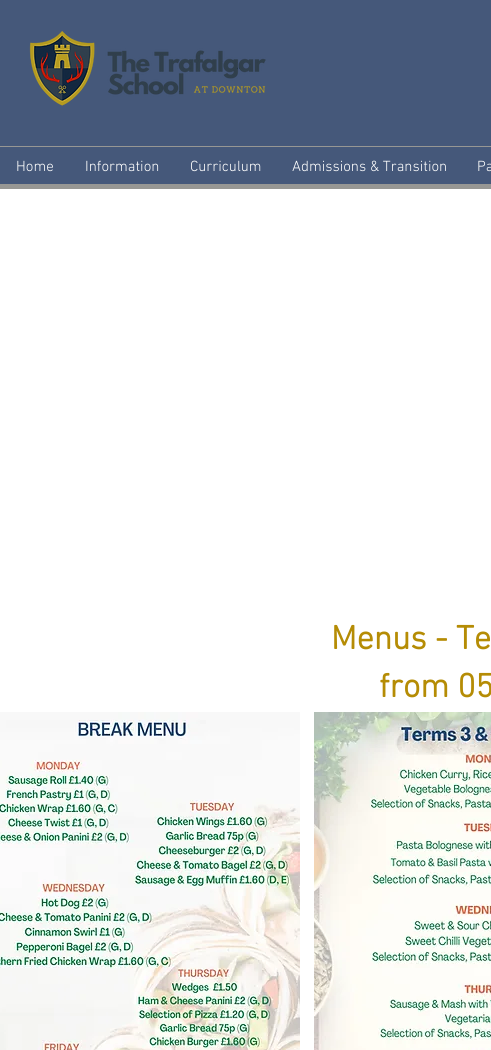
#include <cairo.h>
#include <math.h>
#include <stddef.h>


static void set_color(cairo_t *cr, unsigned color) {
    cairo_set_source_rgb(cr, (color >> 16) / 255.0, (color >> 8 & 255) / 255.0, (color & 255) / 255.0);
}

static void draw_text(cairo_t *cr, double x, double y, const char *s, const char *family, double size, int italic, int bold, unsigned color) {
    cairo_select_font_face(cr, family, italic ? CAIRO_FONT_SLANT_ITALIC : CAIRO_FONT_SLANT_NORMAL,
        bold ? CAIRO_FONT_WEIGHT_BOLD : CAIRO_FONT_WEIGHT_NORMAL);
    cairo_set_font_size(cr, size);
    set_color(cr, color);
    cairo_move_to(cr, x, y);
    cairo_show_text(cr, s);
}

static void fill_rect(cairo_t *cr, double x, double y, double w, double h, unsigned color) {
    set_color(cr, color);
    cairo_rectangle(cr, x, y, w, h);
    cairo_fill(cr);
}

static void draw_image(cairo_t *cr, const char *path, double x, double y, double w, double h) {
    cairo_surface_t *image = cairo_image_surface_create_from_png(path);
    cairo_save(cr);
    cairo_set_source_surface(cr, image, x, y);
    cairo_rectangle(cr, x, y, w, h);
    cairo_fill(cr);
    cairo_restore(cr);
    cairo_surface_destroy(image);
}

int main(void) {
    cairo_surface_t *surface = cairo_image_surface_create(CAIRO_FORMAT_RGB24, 491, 1050);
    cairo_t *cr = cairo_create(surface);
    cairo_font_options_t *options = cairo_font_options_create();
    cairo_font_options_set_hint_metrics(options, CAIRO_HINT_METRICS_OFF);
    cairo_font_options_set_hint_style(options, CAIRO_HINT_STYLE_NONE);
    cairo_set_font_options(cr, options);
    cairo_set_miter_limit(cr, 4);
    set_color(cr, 0xFFFFFF);
    cairo_paint(cr);
    fill_rect(cr, 0, 0, 491, 184, 0x45587A);
    fill_rect(cr, 0, 184, 491, 5, 0x979794);
    draw_image(cr, "assets/img1.png", 29, 31, 237, 75);
    fill_rect(cr, 0, 146, 491, 1, 0x979794);
    draw_text(cr, 16, 171, "Home", "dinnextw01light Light", 15, 0, 0, 0xFFFFFF);
    draw_text(cr, 85, 171, "Information", "dinnextw01light Light", 15, 0, 0, 0xFFFFFF);
    draw_text(cr, 190, 171, "Curriculum", "dinnextw01light Light", 15, 0, 0, 0xFFFFFF);
    draw_text(cr, 292, 171, "Admissions & Transition", "dinnextw01light Light", 15, 0, 0, 0xFFFFFF);
    draw_text(cr, 477, 171, "Pa", "dinnextw01light Light", 15, 0, 0, 0xFFFFFF);
    draw_text(cr, 331, 649, "Menus - Te", "dinnextw01light", 34, 0, 1, 0xB58C05);
    draw_text(cr, 379, 697, "from 05", "dinnextw01light", 34, 0, 1, 0xB58C05);
    draw_image(cr, "assets/img2.png", 0, 712, 300, 338);
    draw_image(cr, "assets/img3.png", 314, 712, 177, 338);
    cairo_surface_write_to_png(surface, "output.png");
    cairo_font_options_destroy(options);
    cairo_destroy(cr);
    cairo_surface_destroy(surface);
    return 0;
}
